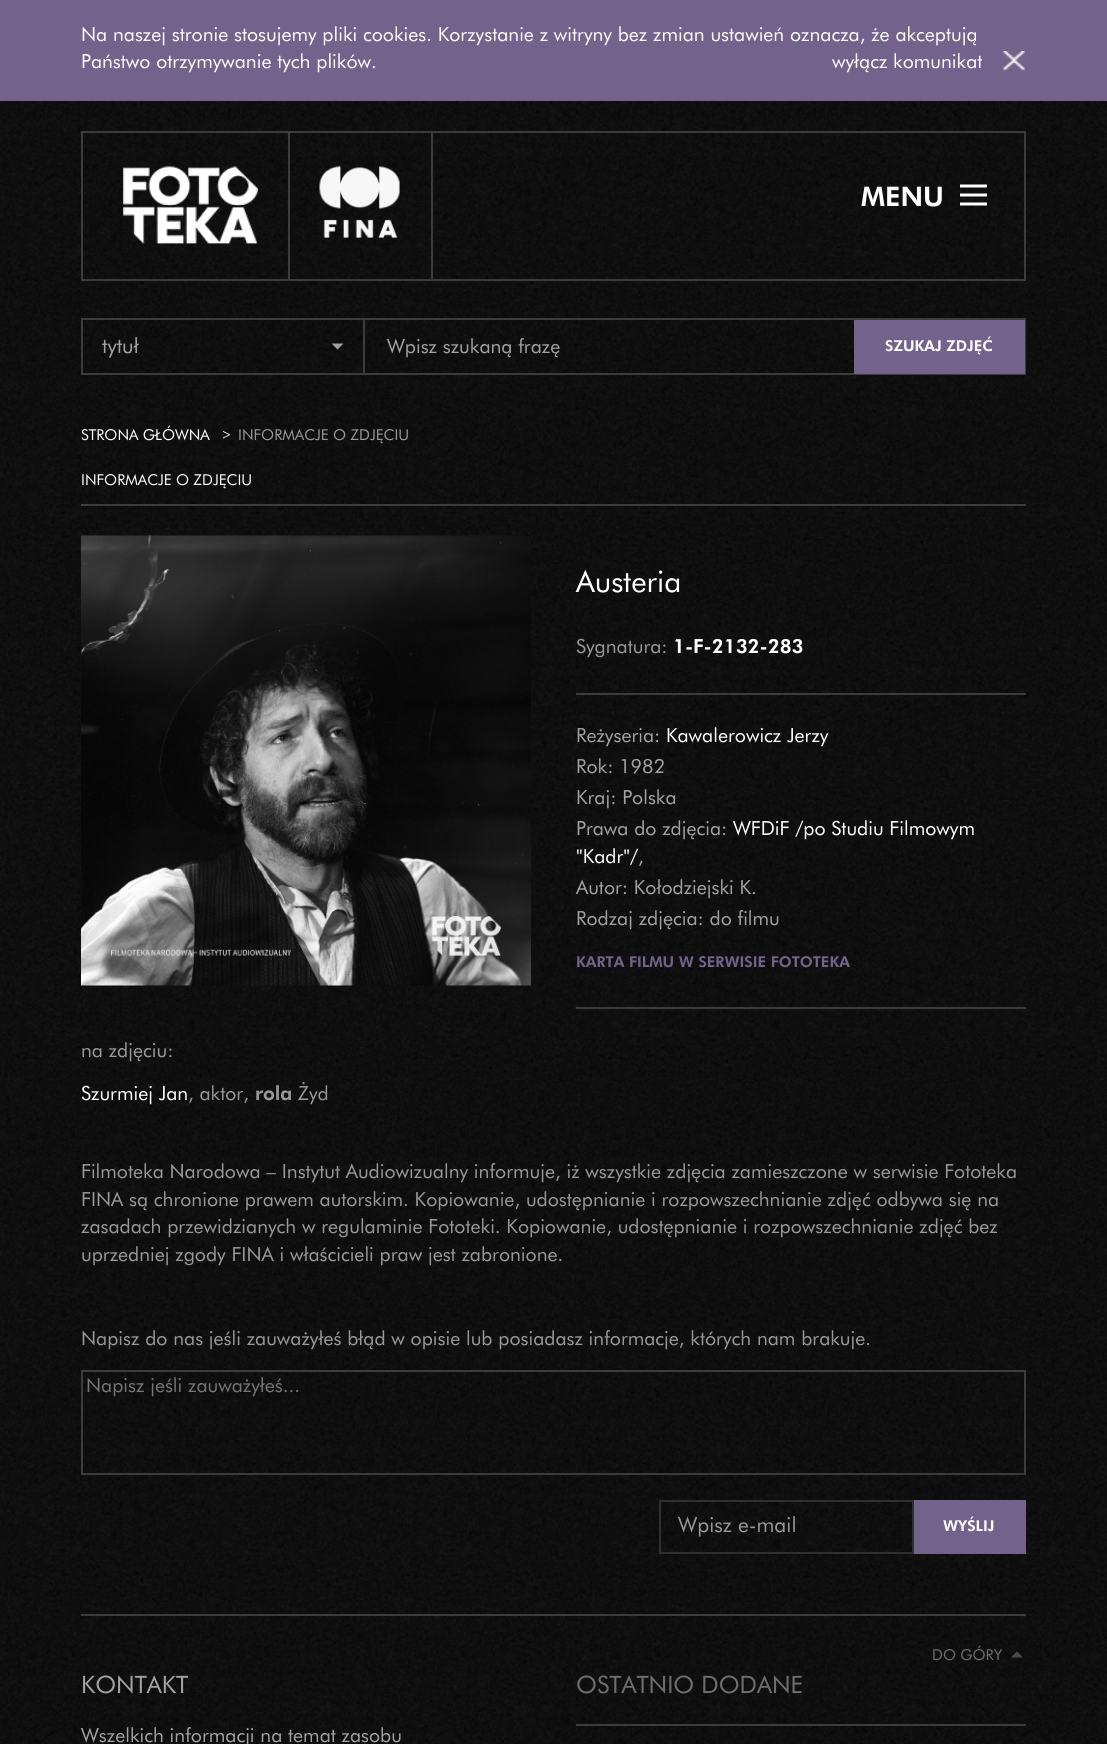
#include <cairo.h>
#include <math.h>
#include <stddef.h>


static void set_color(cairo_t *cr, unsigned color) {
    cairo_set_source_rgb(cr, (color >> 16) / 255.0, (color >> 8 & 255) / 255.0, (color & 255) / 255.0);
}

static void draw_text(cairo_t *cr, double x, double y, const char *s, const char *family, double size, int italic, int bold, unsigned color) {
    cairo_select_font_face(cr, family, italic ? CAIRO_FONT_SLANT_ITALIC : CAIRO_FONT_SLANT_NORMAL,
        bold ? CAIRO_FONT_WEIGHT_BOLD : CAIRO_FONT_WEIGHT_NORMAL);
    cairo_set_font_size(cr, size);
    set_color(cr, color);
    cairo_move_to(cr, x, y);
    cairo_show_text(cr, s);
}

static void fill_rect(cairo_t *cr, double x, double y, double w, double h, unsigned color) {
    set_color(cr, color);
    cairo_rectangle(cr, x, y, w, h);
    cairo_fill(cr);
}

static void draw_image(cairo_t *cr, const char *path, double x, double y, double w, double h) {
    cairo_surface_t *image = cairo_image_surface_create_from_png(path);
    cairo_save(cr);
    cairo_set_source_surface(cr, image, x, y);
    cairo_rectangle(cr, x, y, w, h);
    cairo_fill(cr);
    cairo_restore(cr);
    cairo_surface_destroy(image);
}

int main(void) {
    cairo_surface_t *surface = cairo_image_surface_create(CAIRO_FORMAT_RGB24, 1107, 1744);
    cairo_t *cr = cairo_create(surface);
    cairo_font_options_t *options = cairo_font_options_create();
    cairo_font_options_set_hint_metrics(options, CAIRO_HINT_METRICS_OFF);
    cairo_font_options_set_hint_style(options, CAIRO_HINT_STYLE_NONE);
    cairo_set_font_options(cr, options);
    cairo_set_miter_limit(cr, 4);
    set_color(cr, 0xFFFFFF);
    cairo_paint(cr);
    draw_image(cr, "assets/img1.png", 0, 101, 1107, 1643);
    fill_rect(cr, 0, 0, 1107, 101, 0x73638C);
    draw_text(cr, 81, 41, "Na naszej stronie stosujemy pliki cookies. Korzystanie z witryny bez zmian ustawień oznacza, że akceptują", "Futura", 19.5, 0, 0, 0xFFFFFF);
    draw_text(cr, 81, 68, "Państwo otrzymywanie tych plików.", "Futura", 19.5, 0, 0, 0xFFFFFF);
    draw_text(cr, 832, 68, "wyłącz komunikat", "Futura", 19.5, 0, 0, 0xFFFFFF);
    draw_image(cr, "assets/img2.png", 1003, 51, 23, 20);
    cairo_rectangle(cr, 82, 132, 943, 148);
    set_color(cr, 0x3C3C3C);
    cairo_stroke(cr);
    fill_rect(cr, 288, 131, 2, 150, 0x3C3C3C);
    draw_image(cr, "assets/img3.png", 123, 166, 135, 78);
    fill_rect(cr, 431, 131, 2, 150, 0x3C3C3C);
    draw_image(cr, "assets/img4.png", 319, 166, 81, 72);
    draw_text(cr, 861, 206, "MENU", "Futura Black", 27, 0, 0, 0xFFFFFF);
    draw_image(cr, "assets/img5.png", 960, 184, 27, 22);
    cairo_rectangle(cr, 82, 319, 943, 55);
    set_color(cr, 0x3C3C3C);
    cairo_stroke(cr);
    fill_rect(cr, 363, 320, 2, 54, 0x3C3C3C);
    draw_text(cr, 102, 353, "tytuł", "Futura", 21, 0, 0, 0xA3A3A3);
    cairo_new_path(cr);
    cairo_move_to(cr, 331.5, 343.5);
    cairo_line_to(cr, 343.5, 343.5);
    cairo_line_to(cr, 337.5, 349.5);
    cairo_close_path(cr);
    cairo_fill(cr);
    draw_text(cr, 387, 353, "Wpisz szukaną frazę", "Futura", 19.5, 0, 0, 0xA3A3A3);
    fill_rect(cr, 854, 320, 171, 54, 0x73638C);
    draw_text(cr, 885, 351, "SZUKAJ ZDJĘĆ", "Futura Black", 15, 0, 0, 0xFFFFFF);
    draw_text(cr, 81, 440, "STRONA GŁÓWNA", "Futura", 15, 0, 0, 0xFFFFFF);
    draw_text(cr, 222, 440, ">", "Futura", 15, 0, 0, 0xFFFFFF);
    draw_text(cr, 238, 440, "INFORMACJE O ZDJĘCIU", "Futura", 15, 0, 0, 0x999999);
    draw_text(cr, 81, 485, "INFORMACJE O ZDJĘCIU", "Futura", 15, 0, 0, 0xFFFFFF);
    fill_rect(cr, 81, 504, 945, 2, 0x3C3C3C);
    draw_image(cr, "assets/img6.png", 81, 535, 450, 451);
    draw_text(cr, 576, 592, "Austeria", "Futura", 30, 0, 0, 0xFFFFFF);
    draw_text(cr, 576, 653, "Sygnatura:", "Futura", 19.5, 0, 0, 0x999999);
    draw_text(cr, 673, 653, "1-F-2132-283", "Futura Black", 19.5, 0, 0, 0xFFFFFF);
    fill_rect(cr, 576, 693, 450, 2, 0x3C3C3C);
    draw_text(cr, 576, 742, "Reżyseria:", "Futura", 19.5, 0, 0, 0xA3A3A3);
    draw_text(cr, 666, 742, "Kawalerowicz Jerzy", "Futura", 19.5, 0, 0, 0xFFFFFF);
    draw_text(cr, 576, 773, "Rok: 1982", "Futura", 19.5, 0, 0, 0xA3A3A3);
    draw_text(cr, 576, 804, "Kraj: Polska", "Futura", 19.5, 0, 0, 0xA3A3A3);
    draw_text(cr, 576, 835, "Prawa do zdjęcia:", "Futura", 19.5, 0, 0, 0xA3A3A3);
    draw_text(cr, 733, 835, "WFDiF /po Studiu Filmowym", "Futura", 19.5, 0, 0, 0xFFFFFF);
    draw_text(cr, 576, 863, "\"Kadr\"/", "Futura", 19.5, 0, 0, 0xFFFFFF);
    draw_text(cr, 638, 863, ",", "Futura", 19.5, 0, 0, 0xA3A3A3);
    draw_text(cr, 576, 894, "Autor: Kołodziejski K.", "Futura", 19.5, 0, 0, 0xA3A3A3);
    draw_text(cr, 576, 925, "Rodzaj zdjęcia: do filmu", "Futura", 19.5, 0, 0, 0xA3A3A3);
    draw_text(cr, 576, 967, "KARTA FILMU W SERWISIE FOTOTEKA", "Futura Black", 15, 0, 0, 0x73638C);
    fill_rect(cr, 576, 1007, 450, 2, 0x3C3C3C);
    draw_text(cr, 81, 1057, "na zdjęciu:", "Futura", 19.5, 0, 0, 0x999999);
    draw_text(cr, 81, 1100, "Szurmiej Jan", "Futura", 19.5, 0, 0, 0xFFFFFF);
    draw_text(cr, 188, 1100, ", aktor,", "Futura", 19.5, 0, 0, 0x999999);
    draw_text(cr, 255, 1100, "rola", "Futura Black", 19.5, 0, 0, 0x999999);
    draw_text(cr, 298, 1100, "Żyd", "Futura", 19.5, 0, 0, 0x999999);
    draw_text(cr, 81, 1178, "Filmoteka Narodowa – Instytut Audiowizualny informuje, iż wszystkie zdjęcia zamieszczone w serwisie Fototeka", "Futura", 19.5, 0, 0, 0x999999);
    draw_text(cr, 81, 1206, "FINA są chronione prawem autorskim. Kopiowanie, udostępnianie i rozpowszechnianie zdjęć odbywa się na", "Futura", 19.5, 0, 0, 0x999999);
    draw_text(cr, 81, 1233, "zasadach przewidzianych w regulaminie Fototeki. Kopiowanie, udostępnianie i rozpowszechnianie zdjęć bez", "Futura", 19.5, 0, 0, 0x999999);
    draw_text(cr, 81, 1261, "uprzedniej zgody FINA i właścicieli praw jest zabronione.", "Futura", 19.5, 0, 0, 0x999999);
    draw_text(cr, 81, 1345, "Napisz do nas jeśli zauważyłeś błąd w opisie lub posiadasz informacje, których nam brakuje.", "Futura", 19.5, 0, 0, 0x999999);
    cairo_rectangle(cr, 82, 1371, 943, 103);
    set_color(cr, 0x3C3C3C);
    cairo_stroke(cr);
    draw_text(cr, 86, 1392, "Napisz jeśli zauważyłeś...", "Futura", 19.5, 0, 0, 0x757575);
    cairo_rectangle(cr, 660, 1501, 253, 52);
    set_color(cr, 0x303030);
    cairo_stroke(cr);
    draw_text(cr, 678, 1532, "Wpisz e-mail", "Futura", 21, 0, 0, 0x999999);
    fill_rect(cr, 914, 1500, 112, 54, 0x73638C);
    draw_text(cr, 943, 1531, "WYŚLIJ", "Futura Black", 15, 0, 0, 0xFFFFFF);
    fill_rect(cr, 81, 1614, 945, 2, 0x3C3C3C);
    draw_text(cr, 932, 1660, "DO GÓRY", "Futura", 15, 0, 0, 0x6F6F6F);
    cairo_set_source_rgba(cr, 0.639, 0.639, 0.639, 0.4);
    cairo_new_path(cr);
    cairo_move_to(cr, 1023, 1657.5);
    cairo_line_to(cr, 1011, 1657.5);
    cairo_line_to(cr, 1017, 1651.5);
    cairo_close_path(cr);
    cairo_fill(cr);
    draw_text(cr, 81, 1693, "KONTAKT", "Futura", 24, 0, 0, 0xA3A3A3);
    draw_text(cr, 81, 1742, "Wszelkich informacji na temat zasobu", "Futura", 19.5, 0, 0, 0xA3A3A3);
    draw_text(cr, 576, 1693, "OSTATNIO DODANE", "Futura", 24, 0, 0, 0x6F6F6F);
    fill_rect(cr, 576, 1724, 450, 2, 0x3C3C3C);
    cairo_surface_write_to_png(surface, "output.png");
    cairo_font_options_destroy(options);
    cairo_destroy(cr);
    cairo_surface_destroy(surface);
    return 0;
}
